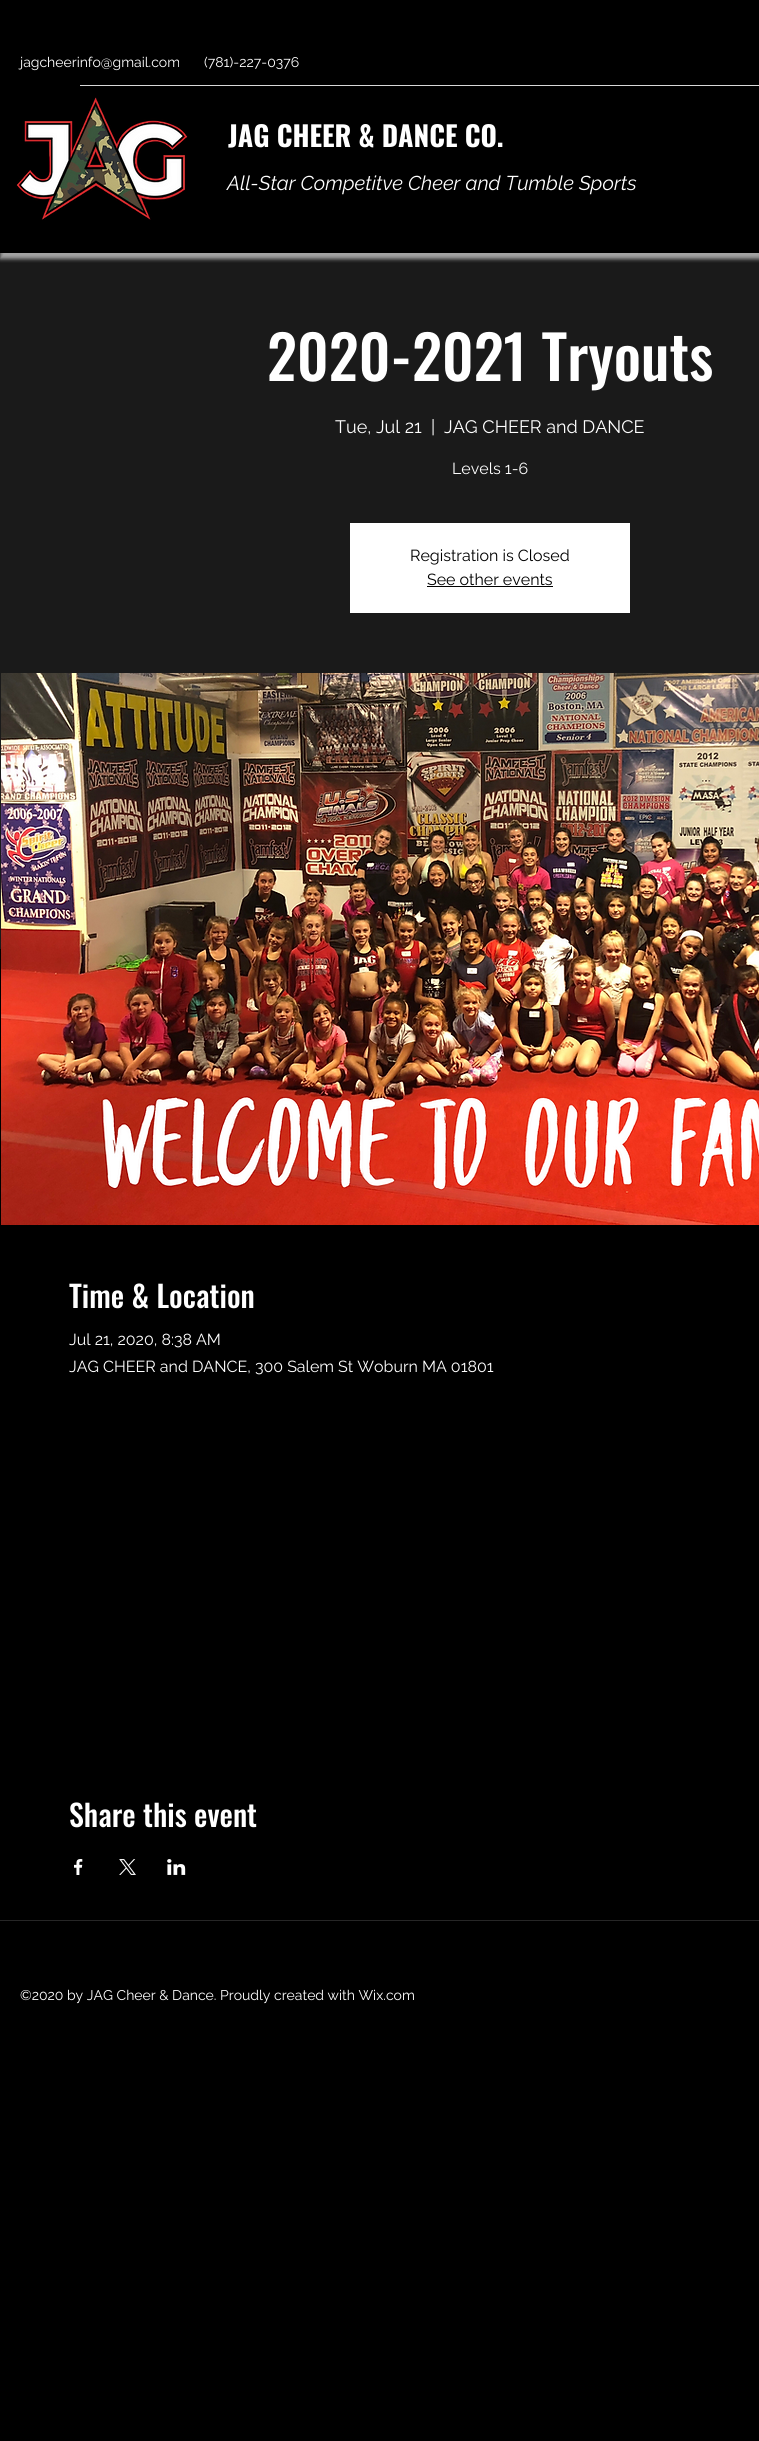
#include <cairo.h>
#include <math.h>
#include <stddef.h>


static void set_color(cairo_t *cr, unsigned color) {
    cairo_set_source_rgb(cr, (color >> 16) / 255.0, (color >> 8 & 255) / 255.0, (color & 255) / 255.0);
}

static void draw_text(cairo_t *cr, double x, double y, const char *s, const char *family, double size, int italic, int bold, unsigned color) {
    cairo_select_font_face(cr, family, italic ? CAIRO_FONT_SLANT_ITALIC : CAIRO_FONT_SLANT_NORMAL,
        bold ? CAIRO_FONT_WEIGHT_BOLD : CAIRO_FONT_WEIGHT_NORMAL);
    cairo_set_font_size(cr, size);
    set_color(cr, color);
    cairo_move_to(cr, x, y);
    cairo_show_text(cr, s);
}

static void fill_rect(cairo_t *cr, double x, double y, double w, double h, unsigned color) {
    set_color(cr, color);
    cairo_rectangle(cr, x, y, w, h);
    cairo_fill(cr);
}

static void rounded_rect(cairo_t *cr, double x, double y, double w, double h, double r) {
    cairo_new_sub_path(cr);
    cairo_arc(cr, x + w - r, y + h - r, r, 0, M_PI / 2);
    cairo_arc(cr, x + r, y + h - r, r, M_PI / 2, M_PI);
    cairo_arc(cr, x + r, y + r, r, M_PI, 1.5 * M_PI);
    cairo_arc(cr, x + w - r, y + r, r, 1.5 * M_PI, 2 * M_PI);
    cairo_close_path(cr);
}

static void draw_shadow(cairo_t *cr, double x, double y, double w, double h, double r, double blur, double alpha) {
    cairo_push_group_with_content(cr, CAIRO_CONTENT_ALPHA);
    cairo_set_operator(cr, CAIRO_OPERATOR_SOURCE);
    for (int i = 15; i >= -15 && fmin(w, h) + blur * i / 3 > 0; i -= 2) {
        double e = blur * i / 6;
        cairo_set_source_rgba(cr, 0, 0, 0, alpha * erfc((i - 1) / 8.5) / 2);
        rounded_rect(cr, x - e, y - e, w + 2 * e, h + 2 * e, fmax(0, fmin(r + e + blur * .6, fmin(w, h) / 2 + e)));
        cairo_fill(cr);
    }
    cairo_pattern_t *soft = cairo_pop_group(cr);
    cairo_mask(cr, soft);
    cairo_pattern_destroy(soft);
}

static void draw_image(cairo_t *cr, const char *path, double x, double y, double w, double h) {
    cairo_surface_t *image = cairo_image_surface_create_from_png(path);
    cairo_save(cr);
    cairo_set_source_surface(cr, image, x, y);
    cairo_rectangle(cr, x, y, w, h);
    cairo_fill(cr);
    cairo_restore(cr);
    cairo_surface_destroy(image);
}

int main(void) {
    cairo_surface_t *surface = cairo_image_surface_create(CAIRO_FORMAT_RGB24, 759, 2441);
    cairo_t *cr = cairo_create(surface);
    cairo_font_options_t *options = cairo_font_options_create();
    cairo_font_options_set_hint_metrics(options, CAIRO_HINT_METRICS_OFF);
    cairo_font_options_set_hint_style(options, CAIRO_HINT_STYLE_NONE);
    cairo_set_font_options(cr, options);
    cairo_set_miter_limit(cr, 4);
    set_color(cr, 0x000000);
    cairo_paint(cr);
    fill_rect(cr, 0, 253, 759, 696, 0x1A1A1A);
    cairo_save(cr);
    cairo_rectangle(cr, 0, 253, 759, 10);
    cairo_clip(cr);
    set_color(cr, 0xFFFFFF);
    draw_shadow(cr, 0, 6, 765, 253, 0, 2, 0.6);
    cairo_restore(cr);
    draw_text(cr, 20, 67, "jagcheerinfo@gmail.com", "Raleway", 14, 0, 0, 0xFFFFFF);
    draw_text(cr, 204, 67, "(781)-227-0376", "Raleway", 14, 0, 0, 0xFFFFFF);
    fill_rect(cr, 80, 85, 679, 1, 0xD9D9D9);
    draw_image(cr, "assets/img1.png", 16, 97, 172, 123);
    draw_text(cr, 228, 147, "JAG CHEER & DANCE CO.", "Oswald", 28, 0, 1, 0xFFFFFF);
    draw_text(cr, 227, 190, "All-Star Competitve Cheer and Tumble Sports", "Raleway", 20, 1, 0, 0xFFFFFF);
    draw_text(cr, 267, 381, "2020-2021 Tryouts", "Oswald Medium", 60, 0, 0, 0xFFFFFF);
    draw_text(cr, 335, 433, "Tue, Jul 21", "Raleway", 18, 0, 0, 0xFFFFFF);
    draw_text(cr, 431, 433, "|", "Raleway", 18, 0, 0, 0xFFFFFF);
    draw_text(cr, 444, 433, "JAG CHEER and DANCE", "Raleway", 18, 0, 0, 0xFFFFFF);
    draw_text(cr, 452, 474, "Levels 1-6", "Raleway", 16, 0, 0, 0xFFFFFF);
    fill_rect(cr, 350, 523, 280, 90, 0xFFFFFF);
    draw_text(cr, 410, 561, "Registration is Closed", "Raleway", 16, 0, 0, 0x000000);
    draw_text(cr, 427, 585, "See other events", "Raleway", 16, 0, 0, 0x000000);
    fill_rect(cr, 427, 586, 126, 1, 0x000000);
    draw_image(cr, "assets/img2.png", 1, 673, 758, 552);
    draw_text(cr, 69, 1308, "Time & Location", "Oswald Medium", 30, 0, 0, 0xFFFFFF);
    draw_text(cr, 69, 1345, "Jul 21, 2020, 8:38 AM", "Raleway", 16, 0, 0, 0xFFFFFF);
    draw_text(cr, 69, 1372, "JAG CHEER and DANCE, 300 Salem St Woburn MA 01801", "Raleway", 16, 0, 0, 0xFFFFFF);
    draw_text(cr, 69, 1827, "Share this event", "Oswald Medium", 30, 0, 0, 0xFFFFFF);
    draw_image(cr, "assets/img3.png", 74, 1859, 9, 16);
    draw_image(cr, "assets/img4.png", 119, 1859, 17, 16);
    draw_image(cr, "assets/img5.png", 167, 1859, 19, 16);
    fill_rect(cr, 0, 1920, 759, 1, 0x262626);
    draw_text(cr, 20, 2000, "©2020 by JAG Cheer & Dance. Proudly created with Wix.com", "Raleway", 14, 0, 0, 0xFFFFFF);
    cairo_surface_write_to_png(surface, "output.png");
    cairo_font_options_destroy(options);
    cairo_destroy(cr);
    cairo_surface_destroy(surface);
    return 0;
}
